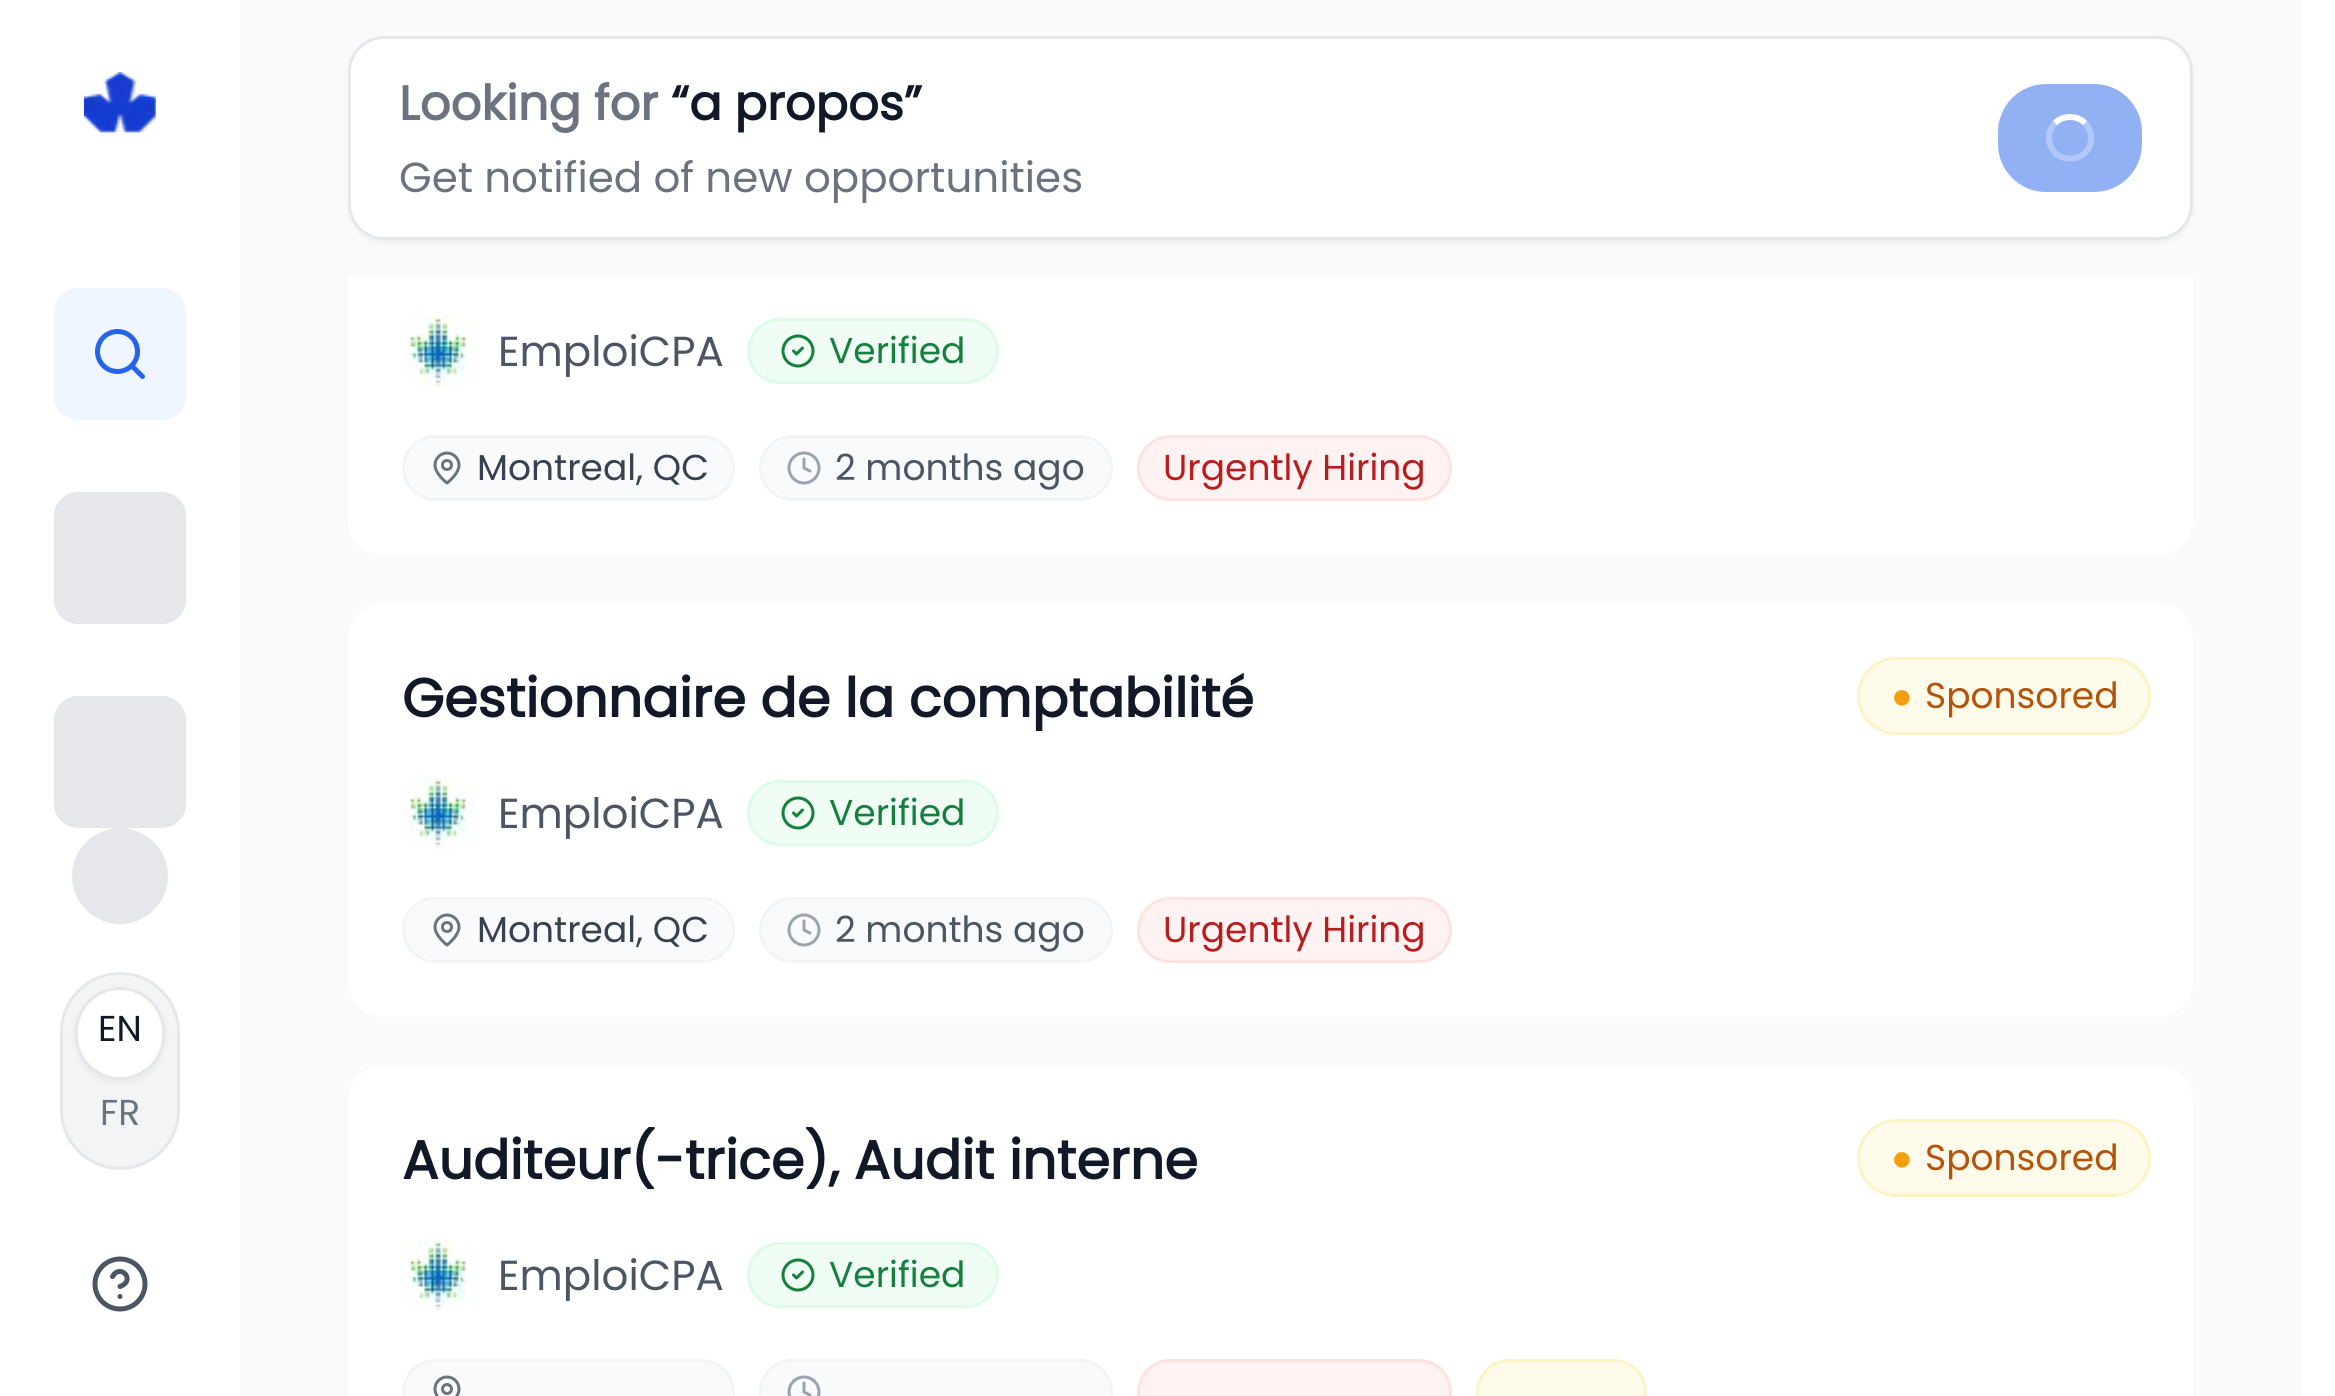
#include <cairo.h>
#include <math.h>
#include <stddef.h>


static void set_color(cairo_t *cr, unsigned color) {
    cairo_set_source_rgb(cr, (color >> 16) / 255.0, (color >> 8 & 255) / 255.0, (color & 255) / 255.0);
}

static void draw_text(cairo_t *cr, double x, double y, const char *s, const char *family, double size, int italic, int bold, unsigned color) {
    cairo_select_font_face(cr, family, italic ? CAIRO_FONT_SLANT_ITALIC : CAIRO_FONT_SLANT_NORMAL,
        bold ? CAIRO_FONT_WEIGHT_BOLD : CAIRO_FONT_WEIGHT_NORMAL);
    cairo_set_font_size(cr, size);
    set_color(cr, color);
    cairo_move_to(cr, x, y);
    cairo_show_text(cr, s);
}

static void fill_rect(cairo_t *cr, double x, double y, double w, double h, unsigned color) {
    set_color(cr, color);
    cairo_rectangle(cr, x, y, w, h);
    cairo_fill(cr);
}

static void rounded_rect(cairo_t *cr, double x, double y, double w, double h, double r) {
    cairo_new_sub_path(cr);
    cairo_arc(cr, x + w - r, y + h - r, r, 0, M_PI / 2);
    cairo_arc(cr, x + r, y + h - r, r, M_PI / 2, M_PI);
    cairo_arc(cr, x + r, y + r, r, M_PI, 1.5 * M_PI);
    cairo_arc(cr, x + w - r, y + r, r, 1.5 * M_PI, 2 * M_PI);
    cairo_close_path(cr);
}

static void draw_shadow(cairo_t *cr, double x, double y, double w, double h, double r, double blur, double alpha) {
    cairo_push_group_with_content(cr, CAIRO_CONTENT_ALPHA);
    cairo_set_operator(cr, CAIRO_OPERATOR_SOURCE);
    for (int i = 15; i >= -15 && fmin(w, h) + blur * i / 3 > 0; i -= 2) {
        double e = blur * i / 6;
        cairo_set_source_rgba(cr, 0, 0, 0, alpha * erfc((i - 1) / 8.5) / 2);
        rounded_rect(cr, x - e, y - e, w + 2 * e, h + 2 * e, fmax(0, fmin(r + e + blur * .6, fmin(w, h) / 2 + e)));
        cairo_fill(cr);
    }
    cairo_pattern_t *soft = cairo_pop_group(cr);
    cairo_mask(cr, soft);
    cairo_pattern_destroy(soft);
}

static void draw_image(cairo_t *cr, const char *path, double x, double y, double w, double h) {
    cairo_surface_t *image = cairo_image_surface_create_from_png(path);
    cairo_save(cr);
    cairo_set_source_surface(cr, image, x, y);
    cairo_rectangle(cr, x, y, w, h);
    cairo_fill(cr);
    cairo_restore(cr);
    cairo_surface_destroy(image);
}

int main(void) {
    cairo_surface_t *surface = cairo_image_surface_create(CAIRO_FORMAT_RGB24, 2335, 1396);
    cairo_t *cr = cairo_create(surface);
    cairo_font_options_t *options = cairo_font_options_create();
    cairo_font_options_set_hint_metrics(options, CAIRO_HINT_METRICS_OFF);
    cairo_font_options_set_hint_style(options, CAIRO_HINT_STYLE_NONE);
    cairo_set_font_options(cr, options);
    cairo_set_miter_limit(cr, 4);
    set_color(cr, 0xFFFFFF);
    cairo_paint(cr);
    draw_image(cr, "assets/img1.png", 84, 72, 72, 61);
    set_color(cr, 0xEFF6FF);
    rounded_rect(cr, 54, 288, 132, 132, 24);
    cairo_fill(cr);
    cairo_arc(cr, 117.5, 351.5, 20, 0, 2 * M_PI);
    set_color(cr, 0x2563EB);
    cairo_set_line_width(cr, 5);
    cairo_stroke(cr);
    cairo_new_path(cr);
    cairo_move_to(cr, 142.5, 376.5);
    cairo_line_to(cr, 132, 366);
    cairo_set_line_cap(cr, CAIRO_LINE_CAP_ROUND);
    cairo_set_line_join(cr, CAIRO_LINE_JOIN_ROUND);
    cairo_stroke(cr);
    set_color(cr, 0xE5E7EB);
    rounded_rect(cr, 54, 492, 132, 132, 24);
    cairo_fill(cr);
    rounded_rect(cr, 54, 696, 132, 132, 24);
    cairo_fill(cr);
    cairo_arc(cr, 120, 876, 48, 0, 2 * M_PI);
    cairo_fill(cr);
    set_color(cr, 0xF3F4F6);
    rounded_rect(cr, 61.5, 973.5, 117, 195, 58.5);
    cairo_fill_preserve(cr);
    set_color(cr, 0xE5E7EB);
    cairo_set_line_width(cr, 3);
    cairo_set_line_cap(cr, CAIRO_LINE_CAP_BUTT);
    cairo_set_line_join(cr, CAIRO_LINE_JOIN_MITER);
    cairo_stroke(cr);
    set_color(cr, 0x000000);
    draw_shadow(cr, 75, 990, 90, 93, 45, 3, 0.05);
    set_color(cr, 0xFFFFFF);
    rounded_rect(cr, 76.5, 988.5, 87, 90, 43.5);
    cairo_fill_preserve(cr);
    set_color(cr, 0xE5E7EB);
    cairo_stroke(cr);
    draw_text(cr, 98, 1041, "EN", "Poppins", 36, 0, 0, 0x111827);
    draw_text(cr, 100, 1125, "FR", "Poppins", 36, 0, 0, 0x6B7280);
    cairo_new_path(cr);
    cairo_arc(cr, 120, 1284, 25, 0, 2 * M_PI);
    set_color(cr, 0x4B5563);
    cairo_set_line_width(cr, 5);
    cairo_stroke(cr);
    cairo_new_path(cr);
    cairo_move_to(cr, 112.5, 1276.5);
    cairo_curve_to(cr, 113.5, 1275, 114.5, 1273.5, 116, 1272.5);
    cairo_curve_to(cr, 124.5, 1267.5, 134, 1281.5, 120, 1286.5);
    cairo_move_to(cr, 120, 1296.5);
    cairo_line_to(cr, 120, 1296.5);
    cairo_set_line_cap(cr, CAIRO_LINE_CAP_ROUND);
    cairo_set_line_join(cr, CAIRO_LINE_JOIN_ROUND);
    cairo_stroke(cr);
    fill_rect(cr, 240, 0, 2061, 1396, 0xFAFAFA);
    set_color(cr, 0xFFFFFF);
    rounded_rect(cr, 348, 141, 1845, 414, 36);
    cairo_fill(cr);
    fill_rect(cr, 348, 141, 1845, 135, 0xFAFAFA);
    set_color(cr, 0x000000);
    draw_shadow(cr, 348, 39, 1845, 204, 36, 3, 0.05);
    set_color(cr, 0xFFFFFF);
    rounded_rect(cr, 349.5, 37.5, 1842, 201, 34.5);
    cairo_fill_preserve(cr);
    set_color(cr, 0xE5E7EB);
    cairo_set_line_width(cr, 3);
    cairo_set_line_cap(cr, CAIRO_LINE_CAP_BUTT);
    cairo_set_line_join(cr, CAIRO_LINE_JOIN_MITER);
    cairo_stroke(cr);
    draw_text(cr, 399, 120, "Looking for", "Poppins", 48, 0, 1, 0x6B7280);
    draw_text(cr, 671, 120, "“a propos”", "Poppins", 48, 0, 1, 0x111827);
    draw_text(cr, 399, 192, "Get notified of new opportunities", "Poppins", 42, 0, 0, 0x6B7280);
    set_color(cr, 0x92B1F5);
    rounded_rect(cr, 1998, 84, 144, 108, 48);
    cairo_fill(cr);
    cairo_new_path(cr);
    cairo_move_to(cr, 2055, 123);
    cairo_curve_to(cr, 2063, 115, 2077, 115, 2085, 123);
    set_color(cr, 0xFFFFFF);
    cairo_set_line_width(cr, 6);
    cairo_stroke(cr);
    cairo_new_path(cr);
    cairo_move_to(cr, 2085, 123);
    cairo_curve_to(cr, 2089, 127, 2091, 132.5, 2091, 138);
    cairo_curve_to(cr, 2091, 163, 2054.5, 166.5, 2049.5, 142);
    cairo_curve_to(cr, 2048, 135.5, 2050, 128, 2055, 123);
    cairo_set_source_rgba(cr, 1, 1, 1, 0.3);
    cairo_stroke(cr);
    draw_image(cr, "assets/img2.png", 402, 315, 72, 72);
    draw_text(cr, 498, 366, "EmploiCPA", "Poppins", 42, 0, 0, 0x4B5563);
    set_color(cr, 0xF0FDF4);
    rounded_rect(cr, 748.5, 319.5, 249, 63, 31.5);
    cairo_fill_preserve(cr);
    set_color(cr, 0xDCFCE7);
    cairo_set_line_width(cr, 3);
    cairo_stroke(cr);
    cairo_arc(cr, 798, 351, 15, 0, 2 * M_PI);
    set_color(cr, 0x15803D);
    cairo_stroke(cr);
    cairo_new_path(cr);
    cairo_move_to(cr, 793.5, 351);
    cairo_line_to(cr, 796.5, 354);
    cairo_line_to(cr, 802.5, 348);
    cairo_set_line_cap(cr, CAIRO_LINE_CAP_ROUND);
    cairo_set_line_join(cr, CAIRO_LINE_JOIN_ROUND);
    cairo_stroke(cr);
    draw_text(cr, 829, 363, "Verified", "Poppins", 36, 0, 0, 0x15803D);
    set_color(cr, 0xF9FAFB);
    rounded_rect(cr, 403.5, 436.5, 330, 63, 31.5);
    cairo_fill_preserve(cr);
    set_color(cr, 0xF3F4F6);
    cairo_set_line_cap(cr, CAIRO_LINE_CAP_BUTT);
    cairo_set_line_join(cr, CAIRO_LINE_JOIN_MITER);
    cairo_stroke(cr);
    cairo_new_path(cr);
    cairo_move_to(cr, 459, 465);
    cairo_curve_to(cr, 459, 474, 447, 483, 447, 483);
    cairo_curve_to(cr, 447, 483, 435, 474, 435, 465);
    cairo_curve_to(cr, 435, 458.5, 440.5, 453, 447, 453);
    cairo_curve_to(cr, 453.5, 453, 459, 458.5, 459, 465);
    cairo_close_path(cr);
    set_color(cr, 0x6B7280);
    cairo_set_line_cap(cr, CAIRO_LINE_CAP_ROUND);
    cairo_set_line_join(cr, CAIRO_LINE_JOIN_ROUND);
    cairo_stroke(cr);
    cairo_arc(cr, 447, 465, 4.5, 0, 2 * M_PI);
    cairo_set_line_cap(cr, CAIRO_LINE_CAP_BUTT);
    cairo_set_line_join(cr, CAIRO_LINE_JOIN_MITER);
    cairo_stroke(cr);
    draw_text(cr, 477, 480, "Montreal, QC", "Poppins", 36, 0, 0, 0x374151);
    set_color(cr, 0xF9FAFB);
    rounded_rect(cr, 760.5, 436.5, 351, 63, 31.5);
    cairo_fill_preserve(cr);
    set_color(cr, 0xF3F4F6);
    cairo_stroke(cr);
    cairo_arc(cr, 804, 468, 15, 0, 2 * M_PI);
    set_color(cr, 0x9CA3AF);
    cairo_stroke(cr);
    cairo_new_path(cr);
    cairo_move_to(cr, 804, 459);
    cairo_line_to(cr, 804, 468);
    cairo_line_to(cr, 810, 471);
    cairo_set_line_cap(cr, CAIRO_LINE_CAP_ROUND);
    cairo_set_line_join(cr, CAIRO_LINE_JOIN_ROUND);
    cairo_stroke(cr);
    draw_text(cr, 835, 480, "2 months ago", "Poppins", 36, 0, 0, 0x4B5563);
    set_color(cr, 0xFEF2F2);
    rounded_rect(cr, 1138.5, 436.5, 312, 63, 31.5);
    cairo_fill_preserve(cr);
    set_color(cr, 0xFEE2E2);
    cairo_set_line_cap(cr, CAIRO_LINE_CAP_BUTT);
    cairo_set_line_join(cr, CAIRO_LINE_JOIN_MITER);
    cairo_stroke(cr);
    draw_text(cr, 1163, 480, "Urgently Hiring", "Poppins", 36, 0, 0, 0xB91C1C);
    set_color(cr, 0xFFFFFF);
    rounded_rect(cr, 348, 603, 1845, 414, 36);
    cairo_fill(cr);
    draw_text(cr, 402, 717, "Gestionnaire de la comptabilité", "Poppins", 54, 0, 1, 0x111827);
    set_color(cr, 0xFFFBEB);
    rounded_rect(cr, 1858.5, 658.5, 291, 75, 37.5);
    cairo_fill_preserve(cr);
    set_color(cr, 0xFEF3C7);
    cairo_stroke(cr);
    draw_text(cr, 1891, 708, "●", "Liberation Sans", 36, 0, 0, 0xF59E0B);
    draw_text(cr, 1925, 708, "Sponsored", "Poppins", 36, 0, 0, 0xB45309);
    draw_image(cr, "assets/img2.png", 402, 777, 72, 72);
    draw_text(cr, 498, 828, "EmploiCPA", "Poppins", 42, 0, 0, 0x4B5563);
    set_color(cr, 0xF0FDF4);
    rounded_rect(cr, 748.5, 781.5, 249, 63, 31.5);
    cairo_fill_preserve(cr);
    set_color(cr, 0xDCFCE7);
    cairo_stroke(cr);
    cairo_arc(cr, 798, 813, 15, 0, 2 * M_PI);
    set_color(cr, 0x15803D);
    cairo_stroke(cr);
    cairo_new_path(cr);
    cairo_move_to(cr, 793.5, 813);
    cairo_line_to(cr, 796.5, 816);
    cairo_line_to(cr, 802.5, 810);
    cairo_set_line_cap(cr, CAIRO_LINE_CAP_ROUND);
    cairo_set_line_join(cr, CAIRO_LINE_JOIN_ROUND);
    cairo_stroke(cr);
    draw_text(cr, 829, 825, "Verified", "Poppins", 36, 0, 0, 0x15803D);
    set_color(cr, 0xF9FAFB);
    rounded_rect(cr, 403.5, 898.5, 330, 63, 31.5);
    cairo_fill_preserve(cr);
    set_color(cr, 0xF3F4F6);
    cairo_set_line_cap(cr, CAIRO_LINE_CAP_BUTT);
    cairo_set_line_join(cr, CAIRO_LINE_JOIN_MITER);
    cairo_stroke(cr);
    cairo_new_path(cr);
    cairo_move_to(cr, 459, 927);
    cairo_curve_to(cr, 459, 936, 447, 945, 447, 945);
    cairo_curve_to(cr, 447, 945, 435, 936, 435, 927);
    cairo_curve_to(cr, 435, 920.5, 440.5, 915, 447, 915);
    cairo_curve_to(cr, 453.5, 915, 459, 920.5, 459, 927);
    cairo_close_path(cr);
    set_color(cr, 0x6B7280);
    cairo_set_line_cap(cr, CAIRO_LINE_CAP_ROUND);
    cairo_set_line_join(cr, CAIRO_LINE_JOIN_ROUND);
    cairo_stroke(cr);
    cairo_arc(cr, 447, 927, 4.5, 0, 2 * M_PI);
    cairo_set_line_cap(cr, CAIRO_LINE_CAP_BUTT);
    cairo_set_line_join(cr, CAIRO_LINE_JOIN_MITER);
    cairo_stroke(cr);
    draw_text(cr, 477, 942, "Montreal, QC", "Poppins", 36, 0, 0, 0x374151);
    set_color(cr, 0xF9FAFB);
    rounded_rect(cr, 760.5, 898.5, 351, 63, 31.5);
    cairo_fill_preserve(cr);
    set_color(cr, 0xF3F4F6);
    cairo_stroke(cr);
    cairo_arc(cr, 804, 930, 15, 0, 2 * M_PI);
    set_color(cr, 0x9CA3AF);
    cairo_stroke(cr);
    cairo_new_path(cr);
    cairo_move_to(cr, 804, 921);
    cairo_line_to(cr, 804, 930);
    cairo_line_to(cr, 810, 933);
    cairo_set_line_cap(cr, CAIRO_LINE_CAP_ROUND);
    cairo_set_line_join(cr, CAIRO_LINE_JOIN_ROUND);
    cairo_stroke(cr);
    draw_text(cr, 835, 942, "2 months ago", "Poppins", 36, 0, 0, 0x4B5563);
    set_color(cr, 0xFEF2F2);
    rounded_rect(cr, 1138.5, 898.5, 312, 63, 31.5);
    cairo_fill_preserve(cr);
    set_color(cr, 0xFEE2E2);
    cairo_set_line_cap(cr, CAIRO_LINE_CAP_BUTT);
    cairo_set_line_join(cr, CAIRO_LINE_JOIN_MITER);
    cairo_stroke(cr);
    draw_text(cr, 1163, 942, "Urgently Hiring", "Poppins", 36, 0, 0, 0xB91C1C);
    set_color(cr, 0xFFFFFF);
    rounded_rect(cr, 348, 1065, 1845, 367, 36);
    cairo_fill(cr);
    draw_text(cr, 402, 1179, "Auditeur(-trice), Audit interne", "Poppins", 54, 0, 1, 0x111827);
    set_color(cr, 0xFFFBEB);
    rounded_rect(cr, 1858.5, 1120.5, 291, 75, 37.5);
    cairo_fill_preserve(cr);
    set_color(cr, 0xFEF3C7);
    cairo_stroke(cr);
    draw_text(cr, 1891, 1170, "●", "Liberation Sans", 36, 0, 0, 0xF59E0B);
    draw_text(cr, 1925, 1170, "Sponsored", "Poppins", 36, 0, 0, 0xB45309);
    draw_image(cr, "assets/img2.png", 402, 1239, 72, 72);
    draw_text(cr, 498, 1290, "EmploiCPA", "Poppins", 42, 0, 0, 0x4B5563);
    set_color(cr, 0xF0FDF4);
    rounded_rect(cr, 748.5, 1243.5, 249, 63, 31.5);
    cairo_fill_preserve(cr);
    set_color(cr, 0xDCFCE7);
    cairo_stroke(cr);
    cairo_arc(cr, 798, 1275, 15, 0, 2 * M_PI);
    set_color(cr, 0x15803D);
    cairo_stroke(cr);
    cairo_new_path(cr);
    cairo_move_to(cr, 793.5, 1275);
    cairo_line_to(cr, 796.5, 1278);
    cairo_line_to(cr, 802.5, 1272);
    cairo_set_line_cap(cr, CAIRO_LINE_CAP_ROUND);
    cairo_set_line_join(cr, CAIRO_LINE_JOIN_ROUND);
    cairo_stroke(cr);
    draw_text(cr, 829, 1287, "Verified", "Poppins", 36, 0, 0, 0x15803D);
    set_color(cr, 0xF9FAFB);
    rounded_rect(cr, 403.5, 1360.5, 330, 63, 31.5);
    cairo_fill_preserve(cr);
    set_color(cr, 0xF3F4F6);
    cairo_set_line_cap(cr, CAIRO_LINE_CAP_BUTT);
    cairo_set_line_join(cr, CAIRO_LINE_JOIN_MITER);
    cairo_stroke(cr);
    draw_image(cr, "assets/img3.png", 433, 1375, 28, 21);
    set_color(cr, 0xF9FAFB);
    rounded_rect(cr, 760.5, 1360.5, 351, 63, 31.5);
    cairo_fill_preserve(cr);
    set_color(cr, 0xF3F4F6);
    cairo_stroke(cr);
    cairo_arc(cr, 804, 1392, 15, 0, 2 * M_PI);
    set_color(cr, 0x9CA3AF);
    cairo_stroke(cr);
    cairo_new_path(cr);
    cairo_move_to(cr, 804, 1383);
    cairo_line_to(cr, 804, 1392);
    cairo_line_to(cr, 810, 1395);
    cairo_set_line_cap(cr, CAIRO_LINE_CAP_ROUND);
    cairo_set_line_join(cr, CAIRO_LINE_JOIN_ROUND);
    cairo_stroke(cr);
    set_color(cr, 0xFEF2F2);
    rounded_rect(cr, 1138.5, 1360.5, 312, 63, 31.5);
    cairo_fill_preserve(cr);
    set_color(cr, 0xFEE2E2);
    cairo_set_line_cap(cr, CAIRO_LINE_CAP_BUTT);
    cairo_set_line_join(cr, CAIRO_LINE_JOIN_MITER);
    cairo_stroke(cr);
    set_color(cr, 0xFFFBEB);
    rounded_rect(cr, 1477.5, 1360.5, 168, 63, 31.5);
    cairo_fill_preserve(cr);
    set_color(cr, 0xFEF3C7);
    cairo_stroke(cr);
    cairo_surface_write_to_png(surface, "output.png");
    cairo_font_options_destroy(options);
    cairo_destroy(cr);
    cairo_surface_destroy(surface);
    return 0;
}
